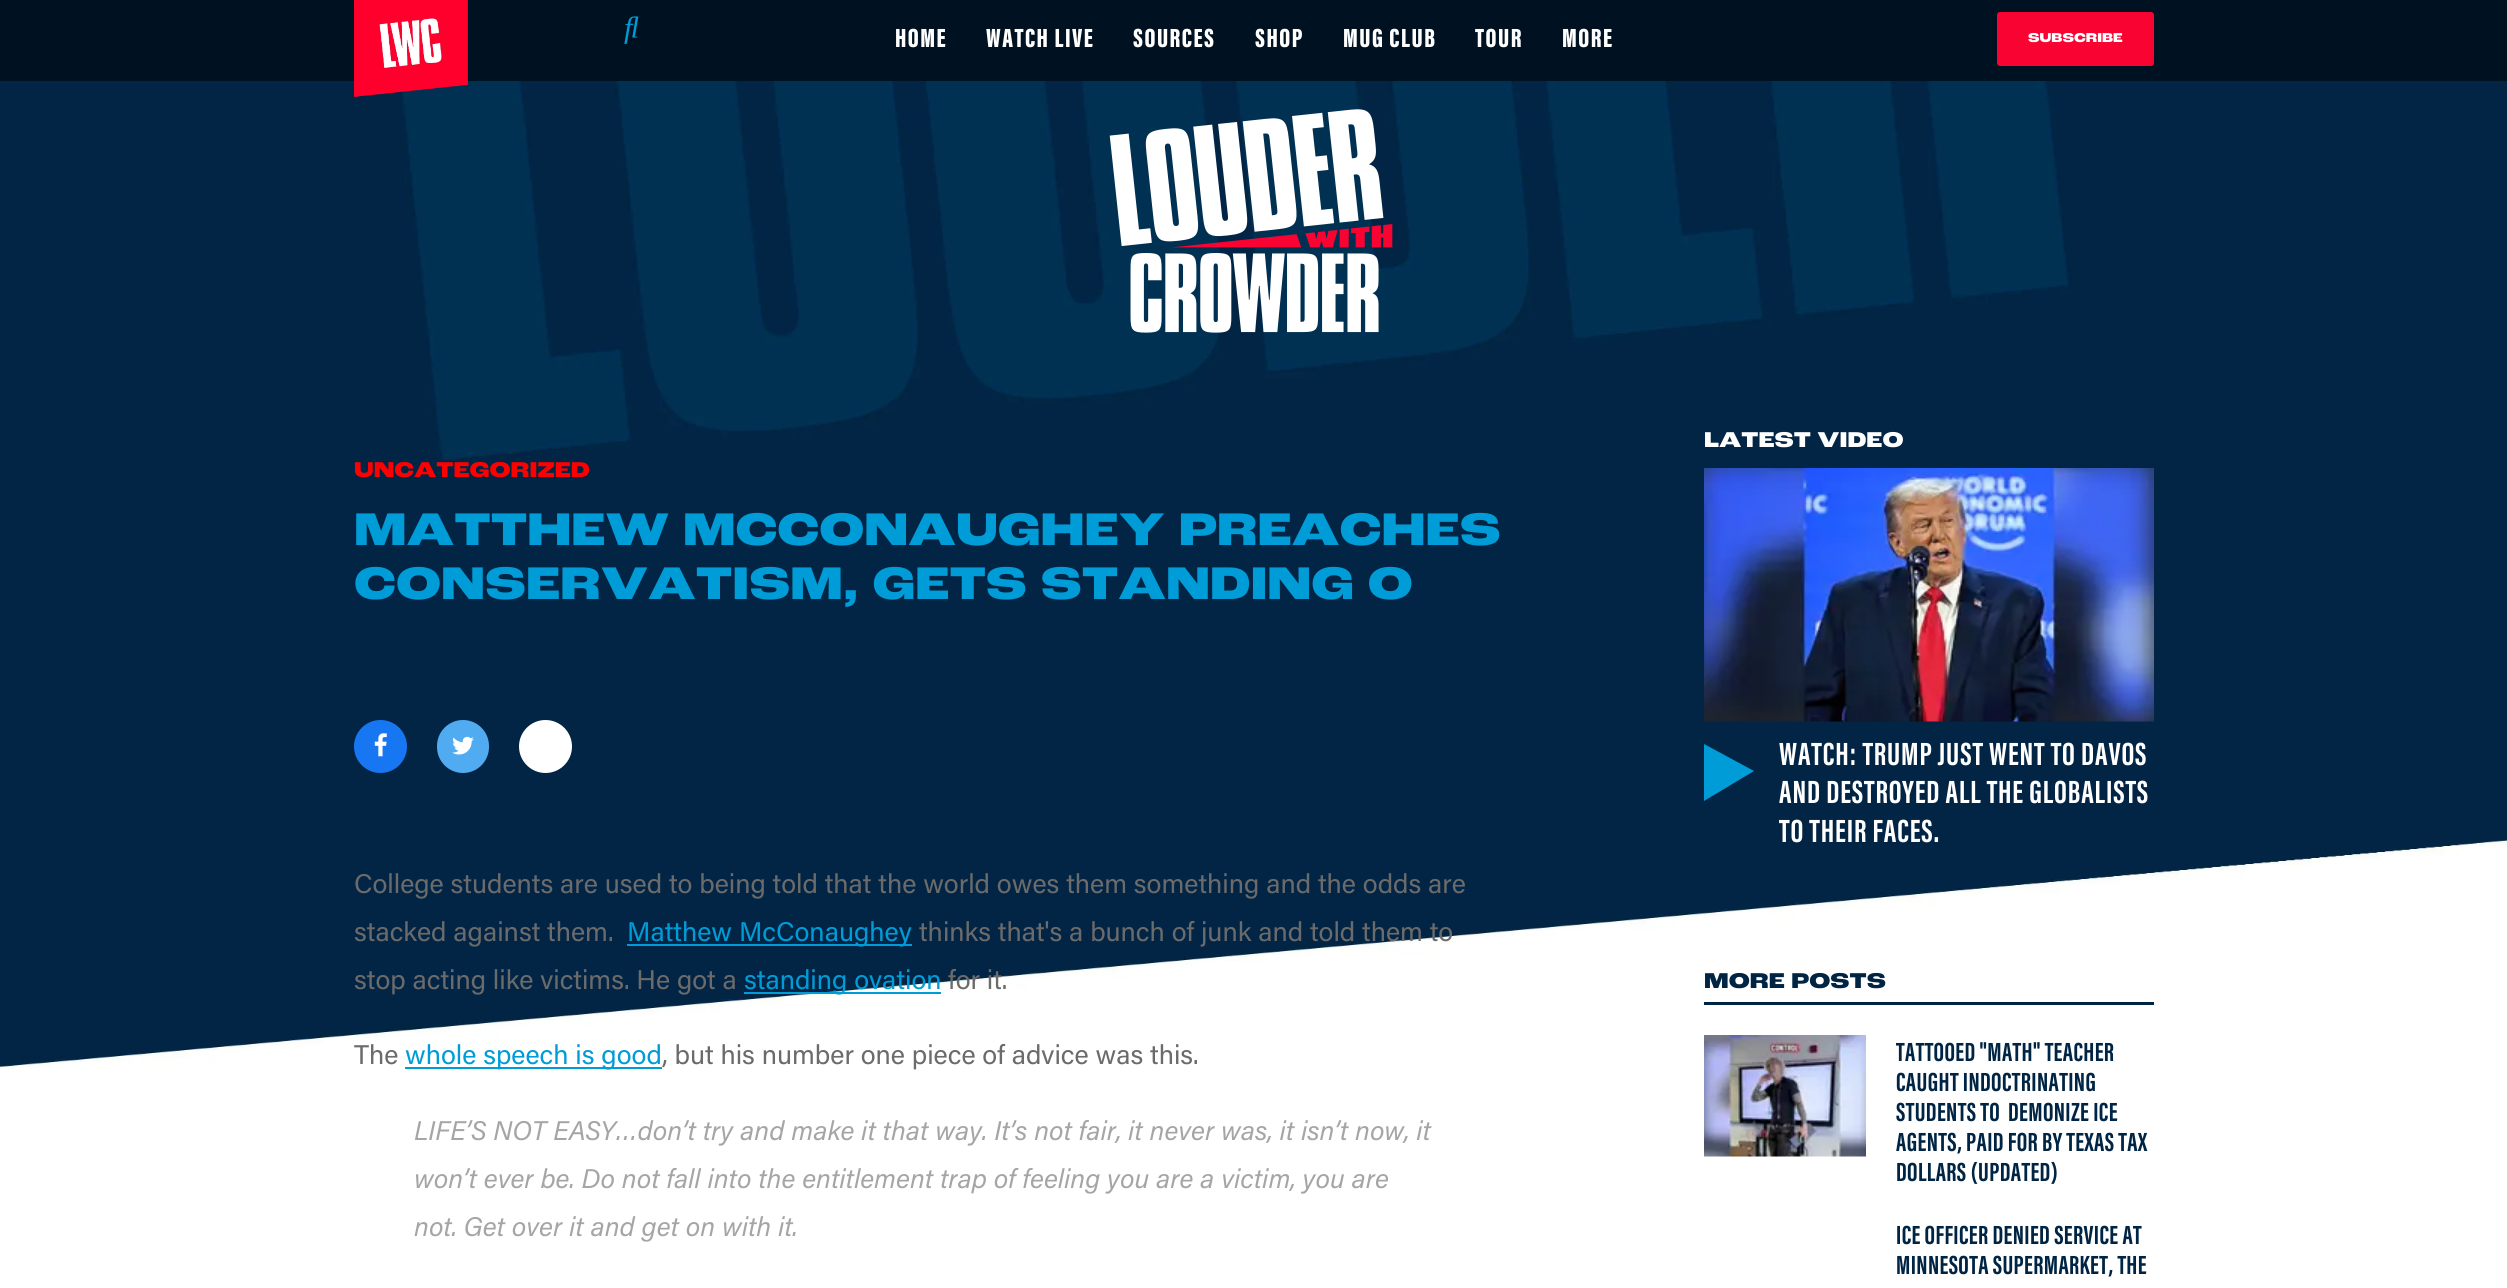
#include <cairo.h>
#include <math.h>
#include <stddef.h>


static void set_color(cairo_t *cr, unsigned color) {
    cairo_set_source_rgb(cr, (color >> 16) / 255.0, (color >> 8 & 255) / 255.0, (color & 255) / 255.0);
}

static void draw_text(cairo_t *cr, double x, double y, const char *s, const char *family, double size, int italic, int bold, unsigned color) {
    cairo_select_font_face(cr, family, italic ? CAIRO_FONT_SLANT_ITALIC : CAIRO_FONT_SLANT_NORMAL,
        bold ? CAIRO_FONT_WEIGHT_BOLD : CAIRO_FONT_WEIGHT_NORMAL);
    cairo_set_font_size(cr, size);
    set_color(cr, color);
    cairo_move_to(cr, x, y);
    cairo_show_text(cr, s);
}

static void draw_spaced(cairo_t *cr, double x, double y, const char *s, double letter, double word) {
    cairo_move_to(cr, x, y);
    while (*s) {
        char ch[5] = {0};
        int n = 0;
        do ch[n++] = *s++; while ((*s & 0xC0) == 0x80);
        cairo_show_text(cr, ch);
        cairo_rel_move_to(cr, letter + word * (*ch == ' '), 0);
    }
}

static void fill_rect(cairo_t *cr, double x, double y, double w, double h, unsigned color) {
    set_color(cr, color);
    cairo_rectangle(cr, x, y, w, h);
    cairo_fill(cr);
}

static void rounded_rect(cairo_t *cr, double x, double y, double w, double h, double r) {
    cairo_new_sub_path(cr);
    cairo_arc(cr, x + w - r, y + h - r, r, 0, M_PI / 2);
    cairo_arc(cr, x + r, y + h - r, r, M_PI / 2, M_PI);
    cairo_arc(cr, x + r, y + r, r, M_PI, 1.5 * M_PI);
    cairo_arc(cr, x + w - r, y + r, r, 1.5 * M_PI, 2 * M_PI);
    cairo_close_path(cr);
}

static void draw_image(cairo_t *cr, const char *path, double x, double y, double w, double h) {
    cairo_surface_t *image = cairo_image_surface_create_from_png(path);
    cairo_save(cr);
    cairo_set_source_surface(cr, image, x, y);
    cairo_rectangle(cr, x, y, w, h);
    cairo_fill(cr);
    cairo_restore(cr);
    cairo_surface_destroy(image);
}

int main(void) {
    cairo_surface_t *surface = cairo_image_surface_create(CAIRO_FORMAT_RGB24, 2507, 1288);
    cairo_t *cr = cairo_create(surface);
    cairo_font_options_t *options = cairo_font_options_create();
    cairo_font_options_set_hint_metrics(options, CAIRO_HINT_METRICS_OFF);
    cairo_font_options_set_hint_style(options, CAIRO_HINT_STYLE_NONE);
    cairo_set_font_options(cr, options);
    cairo_set_miter_limit(cr, 4);
    set_color(cr, 0xFFFFFF);
    cairo_paint(cr);
    fill_rect(cr, 0, 0, 2507, 81, 0x001222);
    draw_image(cr, "assets/img3.png", 0, 81, 2507, 987);
    draw_image(cr, "assets/img1.png", 354, 0, 114, 97);
    draw_image(cr, "assets/img2.png", 624, 16, 15, 28);
    cairo_select_font_face(cr, "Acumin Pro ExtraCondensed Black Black", CAIRO_FONT_SLANT_NORMAL, CAIRO_FONT_WEIGHT_NORMAL);
    cairo_set_font_size(cr, 27);
    set_color(cr, 0xFFFFFF);
    draw_spaced(cr, 895, 47, "HOME", 1.5, 0);
    draw_spaced(cr, 986, 47, "WATCH LIVE", 1.5, 0);
    draw_spaced(cr, 1133, 47, "SOURCES", 1.5, 0);
    draw_spaced(cr, 1255, 47, "SHOP", 1.5, 0);
    draw_spaced(cr, 1343, 47, "MUG CLUB", 1.5, 0);
    draw_spaced(cr, 1475, 47, "TOUR", 1.5, 0);
    draw_spaced(cr, 1562, 47, "MORE", 1.5, 0);
    set_color(cr, 0xF90332);
    rounded_rect(cr, 1998.5, 13.5, 154, 51, 1.5);
    cairo_fill_preserve(cr);
    cairo_set_line_width(cr, 3);
    cairo_stroke(cr);
    draw_text(cr, 2028, 42, "SUBSCRIBE", "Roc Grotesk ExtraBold", 13.5, 0, 0, 0xFFFFFF);
    draw_image(cr, "assets/img4.png", 1109, 109, 284, 224);
    draw_text(cr, 354, 477, "UNCATEGORIZED", "Roc Grotesk ExtraBold", 22.5, 0, 0, 0xFF0000);
    draw_text(cr, 354, 545, "MATTHEW MCCONAUGHEY PREACHES", "Roc Grotesk ExtraBold", 48, 0, 0, 0x009CD7);
    draw_text(cr, 354, 599, "CONSERVATISM, GETS STANDING O", "Roc Grotesk ExtraBold", 48, 0, 0, 0x009CD7);
    set_color(cr, 0x1777F2);
    cairo_new_path(cr);
    cairo_arc(cr, 380.5, 746.5, 26.5, 0, 2 * M_PI);
    cairo_fill(cr);
    draw_image(cr, "assets/img5.png", 374, 733, 13, 24);
    set_color(cr, 0x50ABF1);
    rounded_rect(cr, 437, 720, 52, 53, 26);
    cairo_fill(cr);
    draw_image(cr, "assets/img6.png", 452, 736, 22, 19);
    set_color(cr, 0xFFFFFF);
    cairo_arc(cr, 545.5, 746.5, 26.5, 0, 2 * M_PI);
    cairo_fill(cr);
    draw_text(cr, 354, 893, "College students are used to being told that the world owes them something and the odds are", "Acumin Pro", 27, 0, 0, 0x6B6B6B);
    draw_text(cr, 354, 941, "stacked against them.", "Acumin Pro", 27, 0, 0, 0x6B6B6B);
    fill_rect(cr, 627, 944, 285, 2, 0x009CD7);
    draw_text(cr, 627, 941, "Matthew McConaughey", "Acumin Pro", 27, 0, 0, 0x009CD7);
    draw_text(cr, 919, 941, "thinks that's a bunch of junk and told them to", "Acumin Pro", 27, 0, 0, 0x6B6B6B);
    draw_text(cr, 354, 989, "stop acting like victims. He got a", "Acumin Pro", 27, 0, 0, 0x6B6B6B);
    fill_rect(cr, 744, 992, 197, 2, 0x009CD7);
    draw_text(cr, 744, 989, "standing ovation", "Acumin Pro", 27, 0, 0, 0x009CD7);
    draw_text(cr, 948, 989, "for it.", "Acumin Pro", 27, 0, 0, 0x6B6B6B);
    draw_text(cr, 354, 1064, "The", "Acumin Pro", 27, 0, 0, 0x6B6B6B);
    fill_rect(cr, 405, 1067, 257, 2, 0x009CD7);
    draw_text(cr, 405, 1064, "whole speech is good", "Acumin Pro", 27, 0, 0, 0x009CD7);
    draw_text(cr, 662, 1064, ", but his number one piece of advice was this.", "Acumin Pro", 27, 0, 0, 0x6B6B6B);
    draw_text(cr, 414, 1140, "LIFE’S NOT EASY…don’t try and make it that way. It’s not fair, it never was, it isn’t now, it", "Acumin Pro", 27, 1, 0, 0xA5A5A5);
    draw_text(cr, 414, 1188, "won’t ever be. Do not fall into the entitlement trap of feeling you are a victim, you are", "Acumin Pro", 27, 1, 0, 0xA5A5A5);
    draw_text(cr, 414, 1236, "not. Get over it and get on with it.", "Acumin Pro", 27, 1, 0, 0xA5A5A5);
    draw_text(cr, 1704, 447, "LATEST VIDEO", "Roc Grotesk ExtraBold", 22.5, 0, 0, 0xFFFFFF);
    draw_image(cr, "assets/img7.png", 1704, 468, 450, 254);
    set_color(cr, 0x009CD7);
    cairo_new_path(cr);
    cairo_move_to(cr, 1754, 771);
    cairo_line_to(cr, 1704, 801);
    cairo_line_to(cr, 1704, 744);
    cairo_close_path(cr);
    cairo_fill(cr);
    cairo_select_font_face(cr, "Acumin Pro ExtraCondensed", CAIRO_FONT_SLANT_NORMAL, CAIRO_FONT_WEIGHT_BOLD);
    cairo_set_font_size(cr, 33);
    set_color(cr, 0xFFFFFF);
    draw_spaced(cr, 1779, 765, "WATCH: TRUMP JUST WENT TO DAVOS", 0.9, 0);
    draw_spaced(cr, 1779, 803, "AND DESTROYED ALL THE GLOBALISTS", 0.9, 0);
    draw_spaced(cr, 1779, 842, "TO THEIR FACES.", 0.9, 0);
    fill_rect(cr, 1704, 1002, 450, 3, 0x002544);
    draw_text(cr, 1704, 988, "MORE POSTS", "Roc Grotesk ExtraBold", 22.5, 0, 0, 0x002544);
    draw_image(cr, "assets/img8.png", 1704, 1035, 162, 122);
    cairo_select_font_face(cr, "Acumin Pro ExtraCondensed", CAIRO_FONT_SLANT_NORMAL, CAIRO_FONT_WEIGHT_BOLD);
    cairo_set_font_size(cr, 27);
    draw_spaced(cr, 1896, 1061, "TATTOOED \"MATH\" TEACHER", 0.4, 0);
    draw_spaced(cr, 1896, 1091, "CAUGHT INDOCTRINATING", 0.4, 0);
    draw_spaced(cr, 1896, 1121, "STUDENTS TO  DEMONIZE ICE", 0.4, 0);
    draw_spaced(cr, 1896, 1151, "AGENTS, PAID FOR BY TEXAS TAX", 0.4, 0);
    draw_spaced(cr, 1896, 1181, "DOLLARS (UPDATED)", 0.4, 0);
    draw_spaced(cr, 1896, 1244, "ICE OFFICER DENIED SERVICE AT", 0.4, 0);
    draw_spaced(cr, 1896, 1274, "MINNESOTA SUPERMARKET, THE", 0.4, 0);
    cairo_surface_write_to_png(surface, "output.png");
    cairo_font_options_destroy(options);
    cairo_destroy(cr);
    cairo_surface_destroy(surface);
    return 0;
}
